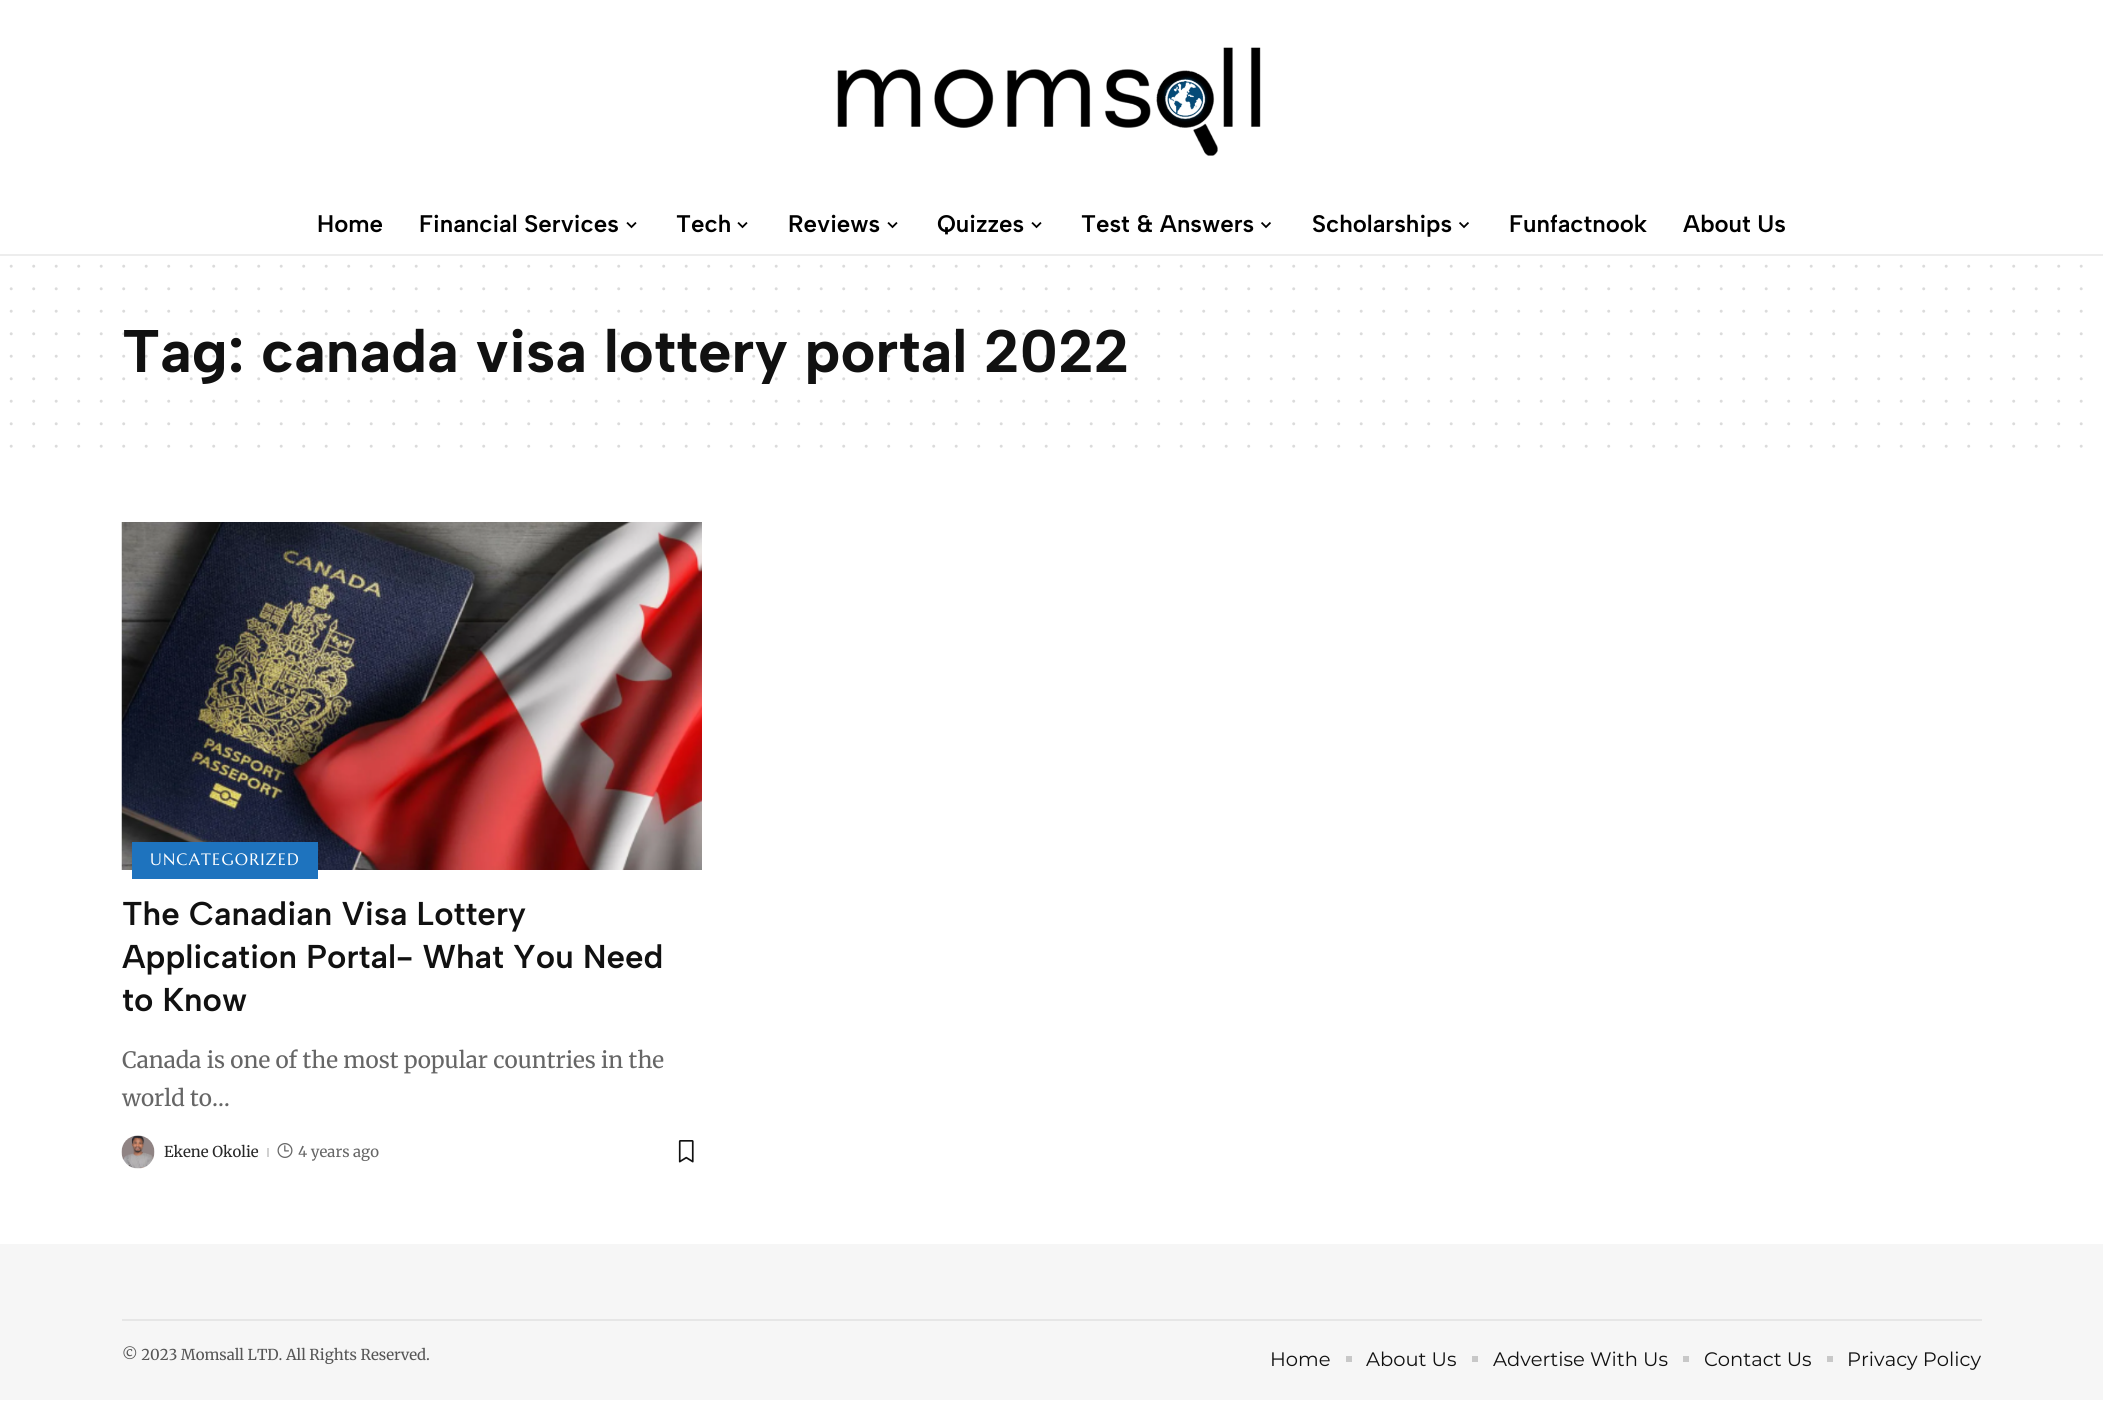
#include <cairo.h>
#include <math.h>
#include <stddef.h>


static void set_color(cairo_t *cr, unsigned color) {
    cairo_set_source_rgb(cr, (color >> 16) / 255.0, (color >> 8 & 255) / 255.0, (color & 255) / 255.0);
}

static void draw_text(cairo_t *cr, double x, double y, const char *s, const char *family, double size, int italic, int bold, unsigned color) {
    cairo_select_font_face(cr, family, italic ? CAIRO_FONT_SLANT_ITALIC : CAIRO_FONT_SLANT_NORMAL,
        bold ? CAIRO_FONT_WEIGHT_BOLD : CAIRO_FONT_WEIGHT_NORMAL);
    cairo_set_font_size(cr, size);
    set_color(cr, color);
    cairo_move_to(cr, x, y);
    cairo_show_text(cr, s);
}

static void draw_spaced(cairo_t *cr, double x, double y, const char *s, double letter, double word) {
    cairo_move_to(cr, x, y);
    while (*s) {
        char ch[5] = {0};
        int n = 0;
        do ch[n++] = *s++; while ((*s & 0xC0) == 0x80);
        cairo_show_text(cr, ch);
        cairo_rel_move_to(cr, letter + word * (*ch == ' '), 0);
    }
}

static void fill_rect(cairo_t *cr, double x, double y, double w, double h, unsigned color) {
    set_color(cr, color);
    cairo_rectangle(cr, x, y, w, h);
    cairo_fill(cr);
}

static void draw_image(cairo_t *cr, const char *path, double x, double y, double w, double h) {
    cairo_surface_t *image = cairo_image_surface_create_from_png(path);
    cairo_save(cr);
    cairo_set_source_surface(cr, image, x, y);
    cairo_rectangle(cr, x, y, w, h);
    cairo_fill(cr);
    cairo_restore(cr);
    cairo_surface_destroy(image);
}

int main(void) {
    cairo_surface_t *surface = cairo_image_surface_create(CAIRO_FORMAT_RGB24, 2103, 1425);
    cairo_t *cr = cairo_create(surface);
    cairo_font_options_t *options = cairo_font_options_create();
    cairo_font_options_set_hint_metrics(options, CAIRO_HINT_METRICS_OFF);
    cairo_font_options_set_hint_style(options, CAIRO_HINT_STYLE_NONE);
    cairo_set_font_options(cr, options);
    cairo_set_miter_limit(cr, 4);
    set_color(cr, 0xFFFFFF);
    cairo_paint(cr);
    draw_image(cr, "assets/img1.png", 837, 47, 424, 109);
    draw_text(cr, 317, 232, "Home", "Albert Sans SemiBold", 24, 0, 0, 0x000000);
    draw_text(cr, 419, 232, "Financial Services", "Albert Sans SemiBold", 24, 0, 0, 0x000000);
    draw_image(cr, "assets/img2.png", 626, 222, 11, 7);
    draw_text(cr, 676, 232, "Tech", "Albert Sans SemiBold", 24, 0, 0, 0x000000);
    draw_image(cr, "assets/img2.png", 737, 222, 11, 7);
    draw_text(cr, 788, 232, "Reviews", "Albert Sans SemiBold", 24, 0, 0, 0x000000);
    draw_image(cr, "assets/img2.png", 887, 222, 11, 7);
    draw_text(cr, 937, 232, "Quizzes", "Albert Sans SemiBold", 24, 0, 0, 0x000000);
    draw_image(cr, "assets/img2.png", 1031, 222, 11, 7);
    draw_text(cr, 1081, 232, "Test & Answers", "Albert Sans SemiBold", 24, 0, 0, 0x000000);
    draw_image(cr, "assets/img3.png", 1261, 222, 10, 7);
    draw_text(cr, 1312, 232, "Scholarships", "Albert Sans SemiBold", 24, 0, 0, 0x000000);
    draw_image(cr, "assets/img3.png", 1459, 222, 10, 7);
    draw_text(cr, 1509, 232, "Funfactnook", "Albert Sans SemiBold", 24, 0, 0, 0x000000);
    draw_text(cr, 1683, 232, "About Us", "Albert Sans SemiBold", 24, 0, 0, 0x000000);
    fill_rect(cr, 0, 254, 2103, 2, 0xEDEDED);
    cairo_new_path(cr);
    cairo_move_to(cr, 11.2, 266.2);
    cairo_line_to(cr, 2081.6, 266.2);
    set_color(cr, 0xDBDBDB);
    cairo_set_line_width(cr, 3);
    cairo_set_line_cap(cr, CAIRO_LINE_CAP_ROUND);
    cairo_set_dash(cr, (double[]){0, 22.5}, 2, 0);
    cairo_stroke(cr);
    cairo_new_path(cr);
    cairo_move_to(cr, 11.2, 288.8);
    cairo_line_to(cr, 2081.6, 288.8);
    cairo_stroke(cr);
    cairo_new_path(cr);
    cairo_move_to(cr, 11.2, 311.2);
    cairo_line_to(cr, 2081.6, 311.2);
    cairo_stroke(cr);
    draw_text(cr, 122, 372, "Tag: canada visa lottery portal 2022", "Albert Sans", 60, 0, 1, 0x111111);
    cairo_new_path(cr);
    cairo_move_to(cr, 11.2, 333.8);
    cairo_line_to(cr, 2081.6, 333.8);
    cairo_set_source_rgba(cr, 0.067, 0.067, 0.067, 0.15);
    cairo_stroke(cr);
    cairo_new_path(cr);
    cairo_move_to(cr, 11.2, 356.2);
    cairo_line_to(cr, 2081.6, 356.2);
    cairo_stroke(cr);
    cairo_new_path(cr);
    cairo_move_to(cr, 11.2, 378.8);
    cairo_line_to(cr, 2081.6, 378.8);
    cairo_stroke(cr);
    cairo_new_path(cr);
    cairo_move_to(cr, 11.2, 401.2);
    cairo_line_to(cr, 2081.6, 401.2);
    set_color(cr, 0xDBDBDB);
    cairo_stroke(cr);
    cairo_new_path(cr);
    cairo_move_to(cr, 11.2, 423.8);
    cairo_line_to(cr, 2081.6, 423.8);
    cairo_stroke(cr);
    cairo_new_path(cr);
    cairo_move_to(cr, 11.2, 446.2);
    cairo_line_to(cr, 2081.6, 446.2);
    cairo_stroke(cr);
    draw_image(cr, "assets/img4.png", 121, 522, 581, 348);
    fill_rect(cr, 132, 842, 186, 37, 0x1E73BE);
    cairo_select_font_face(cr, "Marcellus", CAIRO_FONT_SLANT_NORMAL, CAIRO_FONT_WEIGHT_NORMAL);
    cairo_set_font_size(cr, 16.5);
    set_color(cr, 0xFFFFFF);
    draw_spaced(cr, 150, 865, "UNCATEGORIZED", 1.2, 0);
    draw_text(cr, 122, 925, "The Canadian Visa Lottery", "Albert Sans SemiBold", 33, 0, 0, 0x111111);
    draw_text(cr, 122, 968, "Application Portal- What You Need", "Albert Sans SemiBold", 33, 0, 0, 0x111111);
    draw_text(cr, 122, 1011, "to Know", "Albert Sans SemiBold", 33, 0, 0, 0x111111);
    draw_text(cr, 122, 1068, "Canada is one of the most popular countries in the", "Merriweather Light", 22.5, 0, 0, 0x666666);
    draw_text(cr, 122, 1106, "world to…", "Merriweather Light", 22.5, 0, 0, 0x666666);
    draw_image(cr, "assets/img5.png", 121, 1135, 34, 34);
    draw_text(cr, 164, 1157, "Ekene Okolie", "Merriweather Light", 15, 0, 0, 0x282828);
    fill_rect(cr, 267, 1148, 2, 9, 0xD1D1D1);
    draw_image(cr, "assets/img6.png", 277, 1143, 16, 15);
    draw_text(cr, 298, 1157, "4 years ago", "Merriweather Light", 15, 0, 0, 0x666666);
    draw_image(cr, "assets/img7.png", 678, 1140, 16, 23);
    fill_rect(cr, 0, 1244, 2103, 156, 0xF6F6F6);
    fill_rect(cr, 122, 1319, 1860, 2, 0xE6E6E6);
    draw_text(cr, 122, 1360, "© 2023 Momsall LTD. All Rights Reserved.", "Merriweather Light", 15, 0, 0, 0x565656);
    draw_text(cr, 1270, 1366, "Home", "Montserrat", 19.5, 0, 0, 0x111111);
    fill_rect(cr, 1346, 1356, 6, 6, 0xC8C8C8);
    draw_text(cr, 1366, 1366, "About Us", "Montserrat", 19.5, 0, 0, 0x111111);
    fill_rect(cr, 1472, 1356, 6, 6, 0xC8C8C8);
    draw_text(cr, 1493, 1366, "Advertise With Us", "Montserrat", 19.5, 0, 0, 0x111111);
    fill_rect(cr, 1683, 1356, 6, 6, 0xC8C8C8);
    draw_text(cr, 1704, 1366, "Contact Us", "Montserrat", 19.5, 0, 0, 0x111111);
    fill_rect(cr, 1827, 1356, 6, 6, 0xC8C8C8);
    draw_text(cr, 1847, 1366, "Privacy Policy", "Montserrat", 19.5, 0, 0, 0x111111);
    cairo_surface_write_to_png(surface, "output.png");
    cairo_font_options_destroy(options);
    cairo_destroy(cr);
    cairo_surface_destroy(surface);
    return 0;
}
